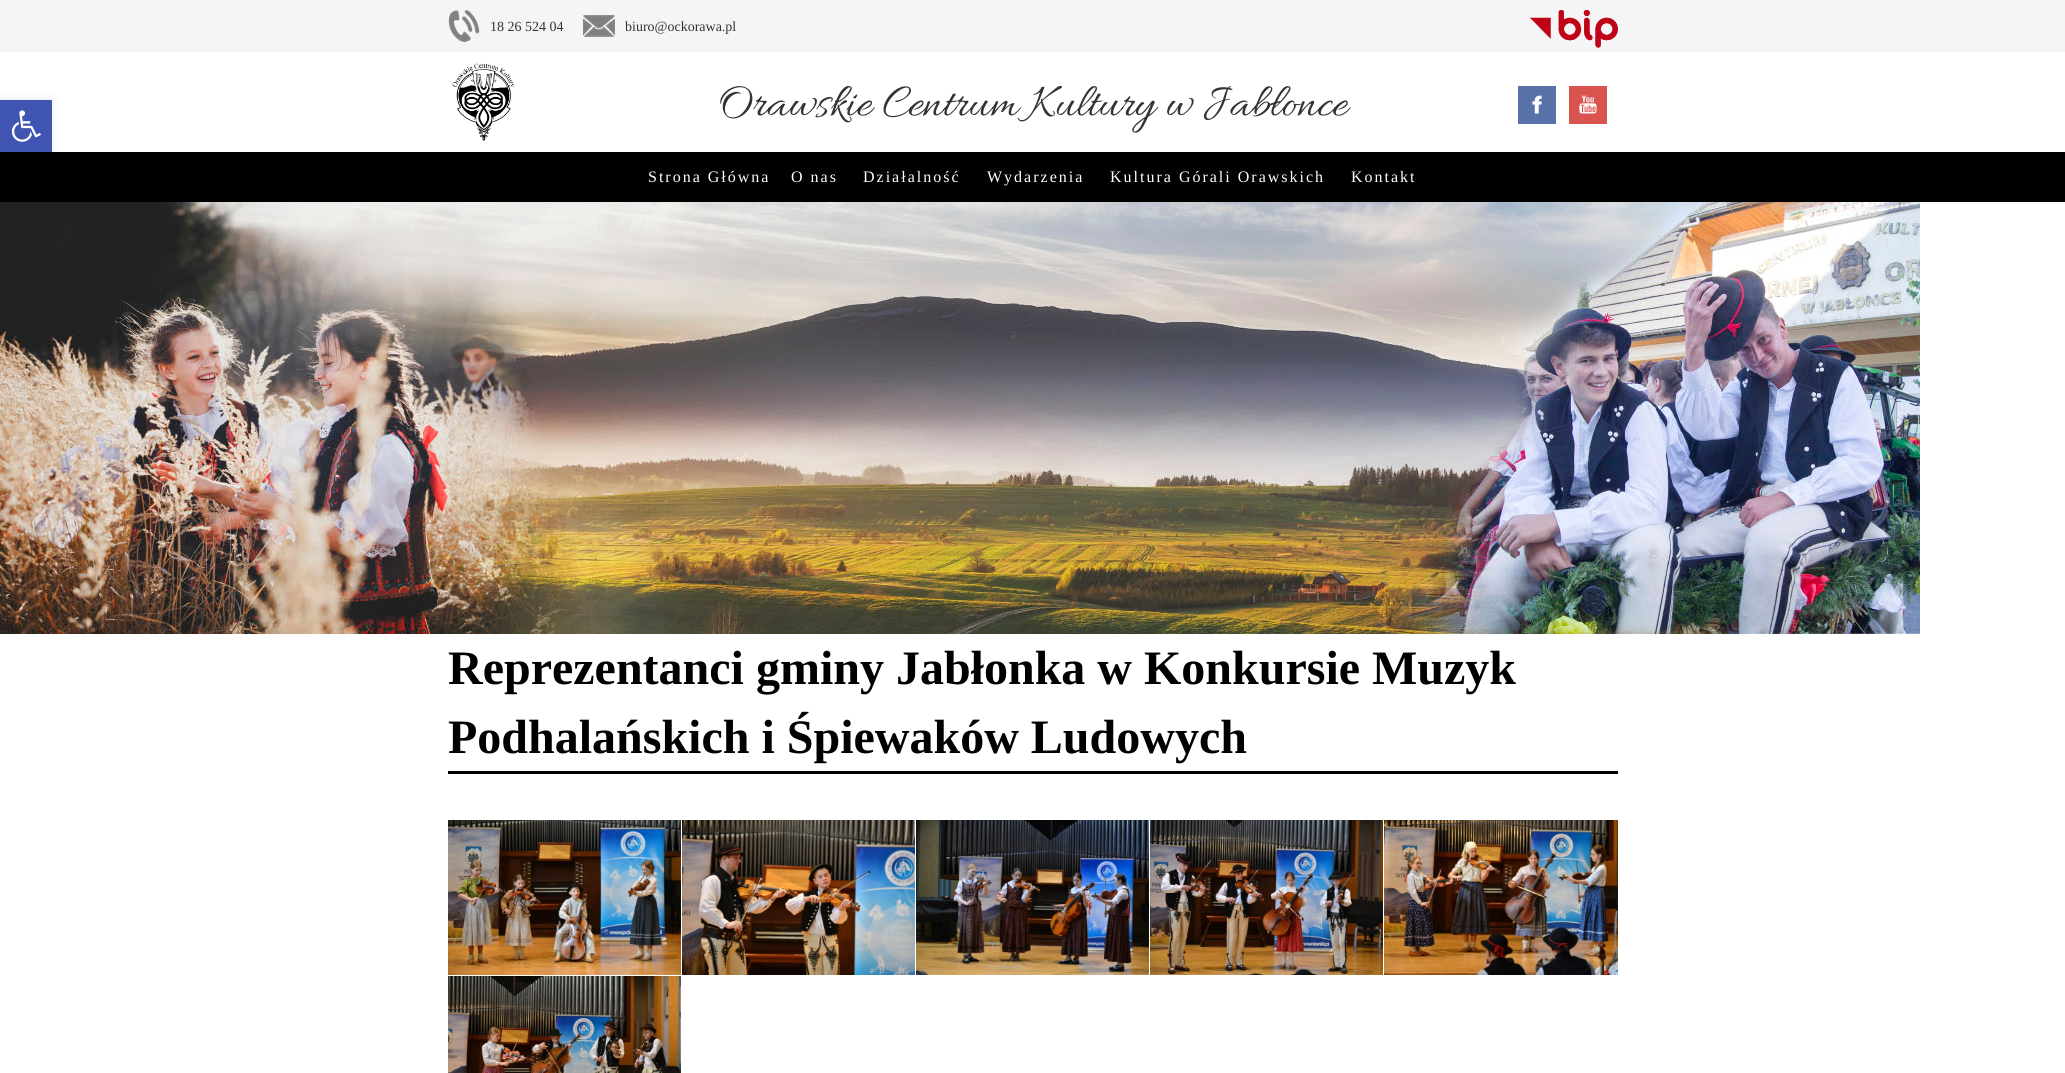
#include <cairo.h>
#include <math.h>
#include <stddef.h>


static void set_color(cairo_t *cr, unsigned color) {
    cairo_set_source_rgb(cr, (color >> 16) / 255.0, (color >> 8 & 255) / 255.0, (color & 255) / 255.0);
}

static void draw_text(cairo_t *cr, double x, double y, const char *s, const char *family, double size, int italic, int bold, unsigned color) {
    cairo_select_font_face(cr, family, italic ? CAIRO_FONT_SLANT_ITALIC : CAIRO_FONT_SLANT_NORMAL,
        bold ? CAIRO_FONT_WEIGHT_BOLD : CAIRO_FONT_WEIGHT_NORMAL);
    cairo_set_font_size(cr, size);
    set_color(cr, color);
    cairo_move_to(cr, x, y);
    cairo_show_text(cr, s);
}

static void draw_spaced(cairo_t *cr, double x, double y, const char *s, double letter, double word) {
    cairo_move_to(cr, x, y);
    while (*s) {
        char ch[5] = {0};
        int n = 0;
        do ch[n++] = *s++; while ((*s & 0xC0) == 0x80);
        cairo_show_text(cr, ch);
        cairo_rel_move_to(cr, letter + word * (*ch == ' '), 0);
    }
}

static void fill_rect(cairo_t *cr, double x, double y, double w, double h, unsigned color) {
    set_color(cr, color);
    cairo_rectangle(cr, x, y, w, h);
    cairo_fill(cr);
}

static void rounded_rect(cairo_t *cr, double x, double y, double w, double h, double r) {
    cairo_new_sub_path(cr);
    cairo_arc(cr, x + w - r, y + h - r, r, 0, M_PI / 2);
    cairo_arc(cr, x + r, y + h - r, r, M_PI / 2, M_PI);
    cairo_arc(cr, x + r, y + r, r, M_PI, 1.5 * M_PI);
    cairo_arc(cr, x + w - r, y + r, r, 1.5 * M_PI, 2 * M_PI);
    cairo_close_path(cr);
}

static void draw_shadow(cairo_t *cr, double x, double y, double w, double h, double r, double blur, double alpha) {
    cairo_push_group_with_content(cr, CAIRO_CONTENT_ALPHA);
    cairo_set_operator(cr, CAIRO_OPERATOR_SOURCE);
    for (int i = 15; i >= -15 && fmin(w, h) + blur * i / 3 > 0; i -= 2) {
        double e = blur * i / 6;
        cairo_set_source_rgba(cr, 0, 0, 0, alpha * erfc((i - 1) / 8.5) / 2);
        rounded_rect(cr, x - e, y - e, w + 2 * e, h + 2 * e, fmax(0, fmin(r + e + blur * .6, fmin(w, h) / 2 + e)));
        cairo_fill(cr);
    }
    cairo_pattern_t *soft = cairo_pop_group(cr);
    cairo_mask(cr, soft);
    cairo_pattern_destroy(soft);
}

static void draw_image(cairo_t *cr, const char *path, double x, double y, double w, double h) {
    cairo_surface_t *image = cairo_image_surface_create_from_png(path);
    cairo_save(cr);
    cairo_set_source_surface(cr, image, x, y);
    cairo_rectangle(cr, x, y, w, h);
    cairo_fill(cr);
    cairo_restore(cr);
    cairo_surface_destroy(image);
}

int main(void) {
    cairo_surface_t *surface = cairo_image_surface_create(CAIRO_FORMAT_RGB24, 2065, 1073);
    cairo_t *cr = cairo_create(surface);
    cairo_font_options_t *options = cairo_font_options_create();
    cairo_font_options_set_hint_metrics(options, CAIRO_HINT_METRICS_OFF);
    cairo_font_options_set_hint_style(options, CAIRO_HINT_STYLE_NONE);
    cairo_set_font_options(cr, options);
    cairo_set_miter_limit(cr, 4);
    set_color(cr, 0xFFFFFF);
    cairo_paint(cr);
    fill_rect(cr, 0, 152, 2065, 50, 0x000000);
    set_color(cr, 0x000000);
    draw_shadow(cr, 0, 100, 52, 52, 0, 5, 0.1);
    fill_rect(cr, 0, 100, 52, 52, 0x4054B2);
    draw_image(cr, "assets/img1.png", 11, 110, 30, 32);
    fill_rect(cr, 0, 0, 2065, 52, 0xF5F5F5);
    draw_image(cr, "assets/img2.png", 448, 10, 32, 32);
    draw_text(cr, 490, 31, "18 26 524 04", "Liberation Serif", 14, 0, 0, 0x333333);
    draw_image(cr, "assets/img3.png", 583, 15, 32, 22);
    draw_text(cr, 625, 31, "biuro@ockorawa.pl", "Liberation Serif", 14, 0, 0, 0x333333);
    draw_image(cr, "assets/img4.png", 1530, 10, 88, 38);
    draw_image(cr, "assets/img5.png", 452, 63, 63, 78);
    draw_text(cr, 718, 115, "Orawskie Centrum Kultury w Jabłonce", "Allura", 48, 0, 0, 0x333333);
    fill_rect(cr, 1518, 86, 38, 38, 0x5871A7);
    draw_image(cr, "assets/img6.png", 1532, 95, 10, 19);
    fill_rect(cr, 1569, 86, 38, 38, 0xD9534F);
    draw_image(cr, "assets/img7.png", 1579, 95, 18, 19);
    cairo_select_font_face(cr, "Liberation Serif", CAIRO_FONT_SLANT_NORMAL, CAIRO_FONT_WEIGHT_NORMAL);
    cairo_set_font_size(cr, 16);
    set_color(cr, 0xFFFFFF);
    draw_spaced(cr, 648, 182, "Strona Główna", 2, 0);
    draw_spaced(cr, 791, 182, "O nas", 2, 0);
    draw_spaced(cr, 863, 182, "Działalność", 2, 0);
    draw_spaced(cr, 987, 182, "Wydarzenia", 2, 0);
    draw_spaced(cr, 1110, 182, "Kultura Górali Orawskich", 2, 0);
    draw_spaced(cr, 1351, 182, "Kontakt", 2, 0);
    draw_image(cr, "assets/img8.png", 0, 202, 1920, 432);
    fill_rect(cr, 448, 771, 1170, 3, 0x000000);
    draw_text(cr, 448, 684, "Reprezentanci gminy Jabłonka w Konkursie Muzyk", "Liberation Serif", 48, 0, 1, 0x000000);
    draw_text(cr, 448, 753, "Podhalańskich i Śpiewaków Ludowych", "Liberation Serif", 48, 0, 1, 0x000000);
    draw_image(cr, "assets/img9.png", 448, 820, 233, 155);
    draw_image(cr, "assets/img10.png", 682, 820, 233, 155);
    draw_image(cr, "assets/img11.png", 916, 820, 233, 155);
    draw_image(cr, "assets/img12.png", 1150, 820, 233, 155);
    draw_image(cr, "assets/img13.png", 1384, 820, 234, 155);
    draw_image(cr, "assets/img14.png", 448, 976, 233, 97);
    cairo_surface_write_to_png(surface, "output.png");
    cairo_font_options_destroy(options);
    cairo_destroy(cr);
    cairo_surface_destroy(surface);
    return 0;
}
